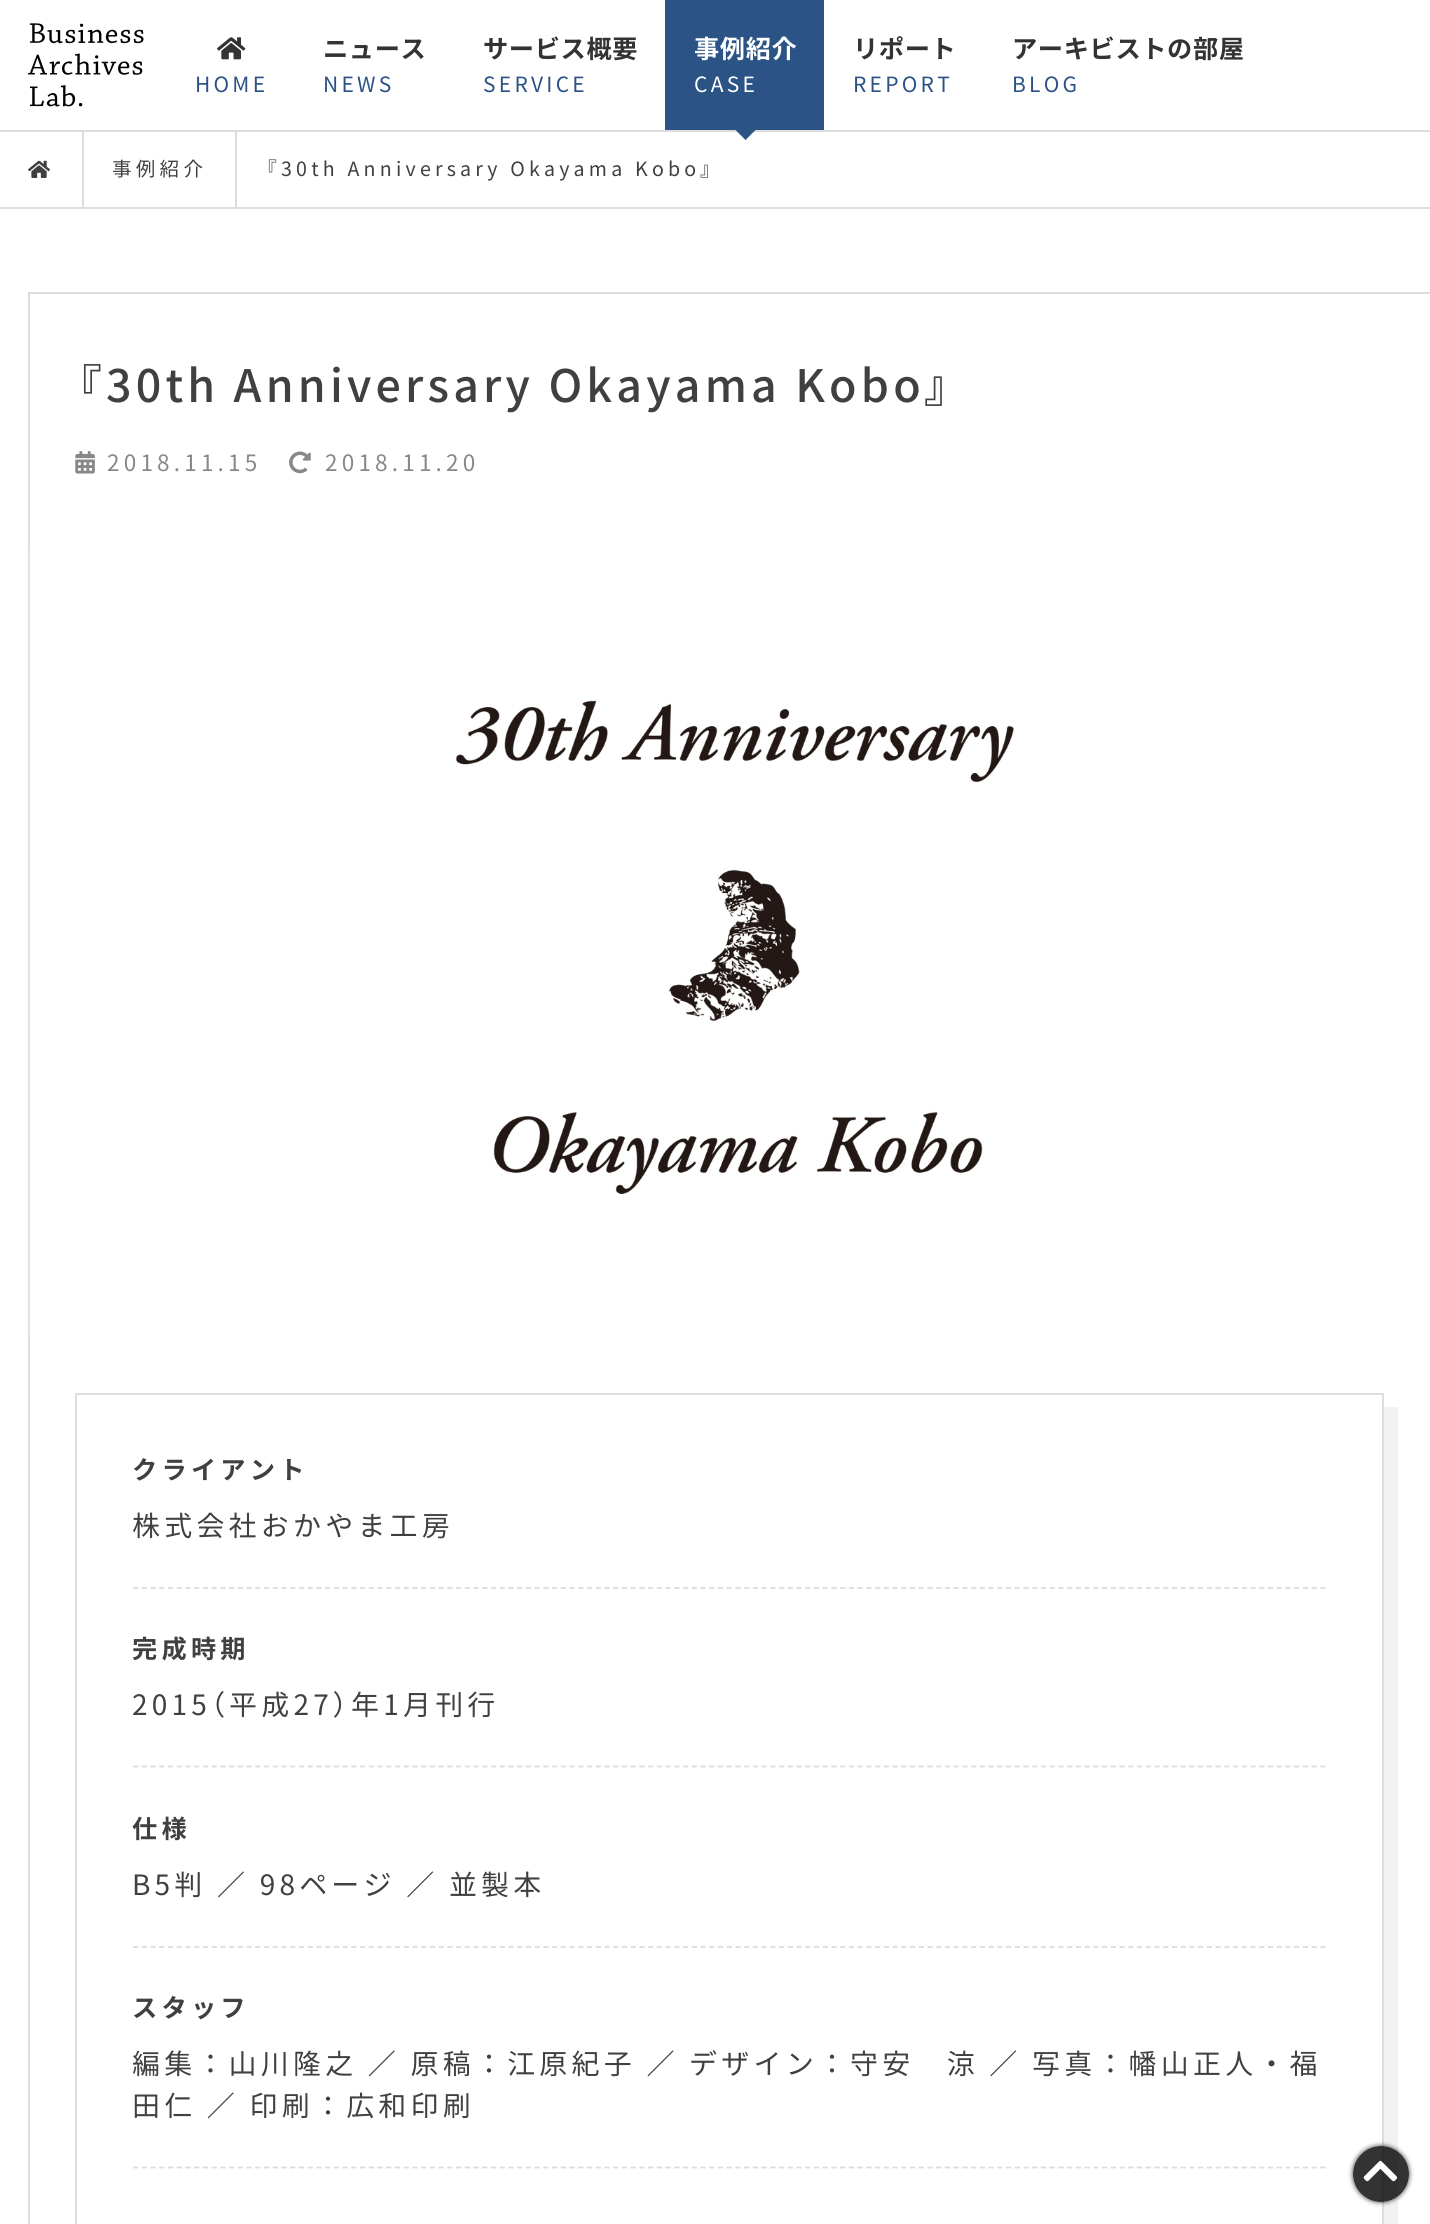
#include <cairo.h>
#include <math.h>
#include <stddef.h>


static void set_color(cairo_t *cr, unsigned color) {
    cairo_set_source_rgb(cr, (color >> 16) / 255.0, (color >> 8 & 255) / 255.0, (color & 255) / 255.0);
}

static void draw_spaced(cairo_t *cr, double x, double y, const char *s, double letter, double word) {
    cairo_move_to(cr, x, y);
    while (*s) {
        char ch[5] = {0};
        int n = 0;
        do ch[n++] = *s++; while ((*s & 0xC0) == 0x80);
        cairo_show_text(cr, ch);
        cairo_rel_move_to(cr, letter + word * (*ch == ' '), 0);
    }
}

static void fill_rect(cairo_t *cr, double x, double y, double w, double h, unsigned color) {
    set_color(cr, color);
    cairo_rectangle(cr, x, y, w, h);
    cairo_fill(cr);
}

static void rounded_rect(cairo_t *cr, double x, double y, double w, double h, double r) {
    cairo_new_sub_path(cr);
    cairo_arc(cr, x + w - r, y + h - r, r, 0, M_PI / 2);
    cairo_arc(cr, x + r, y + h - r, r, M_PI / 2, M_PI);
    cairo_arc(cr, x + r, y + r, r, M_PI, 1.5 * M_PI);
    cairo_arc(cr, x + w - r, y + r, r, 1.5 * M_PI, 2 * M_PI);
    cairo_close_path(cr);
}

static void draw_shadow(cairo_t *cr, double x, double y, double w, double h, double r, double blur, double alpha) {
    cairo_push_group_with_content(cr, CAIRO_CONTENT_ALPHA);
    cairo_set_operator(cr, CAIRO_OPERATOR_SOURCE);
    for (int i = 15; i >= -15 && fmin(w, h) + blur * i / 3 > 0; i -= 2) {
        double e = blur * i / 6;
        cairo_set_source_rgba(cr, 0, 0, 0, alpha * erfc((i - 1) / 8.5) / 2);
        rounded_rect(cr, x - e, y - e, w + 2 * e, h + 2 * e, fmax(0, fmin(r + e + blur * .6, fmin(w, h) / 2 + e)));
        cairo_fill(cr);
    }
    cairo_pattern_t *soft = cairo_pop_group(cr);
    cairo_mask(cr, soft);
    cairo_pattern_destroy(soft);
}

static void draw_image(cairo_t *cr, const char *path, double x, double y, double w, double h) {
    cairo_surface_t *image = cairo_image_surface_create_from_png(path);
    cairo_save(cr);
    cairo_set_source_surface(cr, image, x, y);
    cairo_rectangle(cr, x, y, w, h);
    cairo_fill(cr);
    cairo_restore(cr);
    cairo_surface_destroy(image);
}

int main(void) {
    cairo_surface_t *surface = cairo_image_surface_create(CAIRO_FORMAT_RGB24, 1430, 2224);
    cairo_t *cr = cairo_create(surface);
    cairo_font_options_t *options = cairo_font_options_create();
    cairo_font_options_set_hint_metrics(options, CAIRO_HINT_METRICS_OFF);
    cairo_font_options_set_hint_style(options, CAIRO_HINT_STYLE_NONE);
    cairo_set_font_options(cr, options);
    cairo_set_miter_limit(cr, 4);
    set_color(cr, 0xFFFFFF);
    cairo_paint(cr);
    draw_image(cr, "assets/img1.png", 28, 23, 116, 84);
    draw_image(cr, "assets/img2.png", 217, 37, 29, 23);
    cairo_select_font_face(cr, "Noto Sans JP", CAIRO_FONT_SLANT_NORMAL, CAIRO_FONT_WEIGHT_NORMAL);
    cairo_set_font_size(cr, 21);
    set_color(cr, 0x2B5386);
    draw_spaced(cr, 195, 92, "HOME", 3.25, 0);
    cairo_select_font_face(cr, "Noto Sans JP", CAIRO_FONT_SLANT_NORMAL, CAIRO_FONT_WEIGHT_BOLD);
    cairo_set_font_size(cr, 25.25);
    set_color(cr, 0x333333);
    draw_spaced(cr, 323, 58, "ニュース", 0.6, 0);
    cairo_select_font_face(cr, "Noto Sans JP", CAIRO_FONT_SLANT_NORMAL, CAIRO_FONT_WEIGHT_NORMAL);
    cairo_set_font_size(cr, 21);
    set_color(cr, 0x2B5386);
    draw_spaced(cr, 323, 92, "NEWS", 3.25, 0);
    cairo_select_font_face(cr, "Noto Sans JP", CAIRO_FONT_SLANT_NORMAL, CAIRO_FONT_WEIGHT_BOLD);
    cairo_set_font_size(cr, 25.25);
    set_color(cr, 0x333333);
    draw_spaced(cr, 483, 58, "サービス概要", 0.6, 0);
    cairo_select_font_face(cr, "Noto Sans JP", CAIRO_FONT_SLANT_NORMAL, CAIRO_FONT_WEIGHT_NORMAL);
    cairo_set_font_size(cr, 21);
    set_color(cr, 0x2B5386);
    draw_spaced(cr, 483, 92, "SERVICE", 3.25, 0);
    fill_rect(cr, 665, 0, 159, 130, 0x2B5386);
    cairo_select_font_face(cr, "Noto Sans JP", CAIRO_FONT_SLANT_NORMAL, CAIRO_FONT_WEIGHT_BOLD);
    cairo_set_font_size(cr, 25.25);
    set_color(cr, 0xFFFFFF);
    draw_spaced(cr, 694, 58, "事例紹介", 0.6, 0);
    cairo_select_font_face(cr, "Noto Sans JP", CAIRO_FONT_SLANT_NORMAL, CAIRO_FONT_WEIGHT_NORMAL);
    cairo_set_font_size(cr, 21);
    draw_spaced(cr, 694, 92, "CASE", 3.25, 0);
    fill_rect(cr, 0, 130, 1430, 2, 0xDDDDDD);
    set_color(cr, 0x2B5386);
    cairo_new_path(cr);
    cairo_move_to(cr, 735, 129.5);
    cairo_line_to(cr, 756, 129.5);
    cairo_line_to(cr, 745.5, 140);
    cairo_close_path(cr);
    cairo_fill(cr);
    cairo_select_font_face(cr, "Noto Sans JP", CAIRO_FONT_SLANT_NORMAL, CAIRO_FONT_WEIGHT_BOLD);
    cairo_set_font_size(cr, 25.25);
    set_color(cr, 0x333333);
    draw_spaced(cr, 853, 58, "リポート", 0.6, 0);
    cairo_select_font_face(cr, "Noto Sans JP", CAIRO_FONT_SLANT_NORMAL, CAIRO_FONT_WEIGHT_NORMAL);
    cairo_set_font_size(cr, 21);
    set_color(cr, 0x2B5386);
    draw_spaced(cr, 853, 92, "REPORT", 3.25, 0);
    cairo_select_font_face(cr, "Noto Sans JP", CAIRO_FONT_SLANT_NORMAL, CAIRO_FONT_WEIGHT_BOLD);
    cairo_set_font_size(cr, 25.25);
    set_color(cr, 0x333333);
    draw_spaced(cr, 1012, 58, "アーキビストの部屋", 0.6, 0);
    cairo_select_font_face(cr, "Noto Sans JP", CAIRO_FONT_SLANT_NORMAL, CAIRO_FONT_WEIGHT_NORMAL);
    cairo_set_font_size(cr, 21);
    set_color(cr, 0x2B5386);
    draw_spaced(cr, 1012, 92, "BLOG", 3.25, 0);
    fill_rect(cr, 0, 207, 1430, 2, 0xDDDDDD);
    draw_image(cr, "assets/img3.png", 28, 160, 22, 18);
    fill_rect(cr, 82, 131, 2, 76, 0xDDDDDD);
    cairo_set_font_size(cr, 19.6);
    set_color(cr, 0x404040);
    draw_spaced(cr, 112, 176, "事例紹介", 4.2, 0);
    fill_rect(cr, 235, 131, 2, 76, 0xDDDDDD);
    cairo_select_font_face(cr, "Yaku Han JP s", CAIRO_FONT_SLANT_NORMAL, CAIRO_FONT_WEIGHT_NORMAL);
    set_color(cr, 0x404040);
    draw_spaced(cr, 265, 176, "『", 4.2, 0);
    cairo_select_font_face(cr, "Noto Sans JP", CAIRO_FONT_SLANT_NORMAL, CAIRO_FONT_WEIGHT_NORMAL);
    draw_spaced(cr, 281, 176, "30th Anniversary Okayama Kobo", 4.2, 0);
    cairo_select_font_face(cr, "Yaku Han JP s", CAIRO_FONT_SLANT_NORMAL, CAIRO_FONT_WEIGHT_NORMAL);
    draw_spaced(cr, 700, 176, "』", 4.2, 0);
    cairo_rectangle(cr, 29, 293, 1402, 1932);
    set_color(cr, 0xDDDDDD);
    cairo_stroke(cr);
    cairo_select_font_face(cr, "Yaku Han JP s Medium", CAIRO_FONT_SLANT_NORMAL, CAIRO_FONT_WEIGHT_NORMAL);
    cairo_set_font_size(cr, 44.75);
    set_color(cr, 0x404040);
    draw_spaced(cr, 75, 402, "『", 4.2, 0);
    cairo_select_font_face(cr, "Noto Sans JP Medium", CAIRO_FONT_SLANT_NORMAL, CAIRO_FONT_WEIGHT_NORMAL);
    draw_spaced(cr, 106, 402, "30th Anniversary Okayama Kobo", 4.2, 0);
    cairo_select_font_face(cr, "Yaku Han JP s Medium", CAIRO_FONT_SLANT_NORMAL, CAIRO_FONT_WEIGHT_NORMAL);
    draw_spaced(cr, 924, 402, "』", 4.2, 0);
    draw_image(cr, "assets/img4.png", 75, 451, 20, 23);
    cairo_select_font_face(cr, "Noto Sans JP", CAIRO_FONT_SLANT_NORMAL, CAIRO_FONT_WEIGHT_NORMAL);
    cairo_set_font_size(cr, 22.5);
    set_color(cr, 0x888888);
    draw_spaced(cr, 107, 471, "2018.11.15", 4.2, 0);
    draw_image(cr, "assets/img5.png", 289, 451, 22, 23);
    draw_spaced(cr, 325, 471, "2018.11.20", 4.2, 0);
    draw_image(cr, "assets/img6.png", 29, 548, 1401, 789);
    set_color(cr, 0xF2F2F2);
    cairo_new_path(cr);
    cairo_move_to(cr, 89, 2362);
    cairo_line_to(cr, 89, 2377);
    cairo_line_to(cr, 1398, 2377);
    cairo_line_to(cr, 1398, 1407);
    cairo_line_to(cr, 1384, 1407);
    cairo_line_to(cr, 1384, 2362);
    cairo_close_path(cr);
    cairo_fill(cr);
    cairo_rectangle(cr, 76, 1394, 1307, 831);
    set_color(cr, 0xDDDDDD);
    cairo_stroke(cr);
    cairo_select_font_face(cr, "Noto Sans JP", CAIRO_FONT_SLANT_NORMAL, CAIRO_FONT_WEIGHT_BOLD);
    cairo_set_font_size(cr, 25.25);
    set_color(cr, 0x404040);
    draw_spaced(cr, 132, 1479, "クライアント", 4.2, 0);
    cairo_new_path(cr);
    cairo_move_to(cr, 133, 1588);
    cairo_line_to(cr, 1326.5, 1588);
    set_color(cr, 0xDDDDDD);
    cairo_set_line_width(cr, 1.8);
    cairo_set_dash(cr, (double[]){5.25, 3.48}, 2, 0);
    cairo_stroke(cr);
    cairo_select_font_face(cr, "Noto Sans JP", CAIRO_FONT_SLANT_NORMAL, CAIRO_FONT_WEIGHT_NORMAL);
    cairo_set_font_size(cr, 28);
    set_color(cr, 0x404040);
    draw_spaced(cr, 132, 1536, "株式会社おかやま工房", 4.2, 0);
    cairo_select_font_face(cr, "Noto Sans JP", CAIRO_FONT_SLANT_NORMAL, CAIRO_FONT_WEIGHT_BOLD);
    cairo_set_font_size(cr, 25.25);
    draw_spaced(cr, 132, 1658, "完成時期", 4.2, 0);
    cairo_new_path(cr);
    cairo_move_to(cr, 133, 1766.5);
    cairo_line_to(cr, 1326.5, 1766.5);
    set_color(cr, 0xDDDDDD);
    cairo_stroke(cr);
    cairo_select_font_face(cr, "Noto Sans JP", CAIRO_FONT_SLANT_NORMAL, CAIRO_FONT_WEIGHT_NORMAL);
    cairo_set_font_size(cr, 28);
    set_color(cr, 0x404040);
    draw_spaced(cr, 132, 1715, "2015", 4.2, 0);
    cairo_select_font_face(cr, "Yaku Han JP s", CAIRO_FONT_SLANT_NORMAL, CAIRO_FONT_WEIGHT_NORMAL);
    draw_spaced(cr, 211, 1715, "（", 4.2, 0);
    cairo_select_font_face(cr, "Noto Sans JP", CAIRO_FONT_SLANT_NORMAL, CAIRO_FONT_WEIGHT_NORMAL);
    draw_spaced(cr, 229, 1715, "平成27", 4.2, 0);
    cairo_select_font_face(cr, "Yaku Han JP s", CAIRO_FONT_SLANT_NORMAL, CAIRO_FONT_WEIGHT_NORMAL);
    draw_spaced(cr, 333, 1715, "）", 4.2, 0);
    cairo_select_font_face(cr, "Noto Sans JP", CAIRO_FONT_SLANT_NORMAL, CAIRO_FONT_WEIGHT_NORMAL);
    draw_spaced(cr, 351, 1715, "年1月刊行", 4.2, 0);
    cairo_select_font_face(cr, "Noto Sans JP", CAIRO_FONT_SLANT_NORMAL, CAIRO_FONT_WEIGHT_BOLD);
    cairo_set_font_size(cr, 25.25);
    draw_spaced(cr, 132, 1838, "仕様", 4.2, 0);
    cairo_new_path(cr);
    cairo_move_to(cr, 133, 1947);
    cairo_line_to(cr, 1326.5, 1947);
    set_color(cr, 0xDDDDDD);
    cairo_stroke(cr);
    cairo_select_font_face(cr, "Noto Sans JP", CAIRO_FONT_SLANT_NORMAL, CAIRO_FONT_WEIGHT_NORMAL);
    cairo_set_font_size(cr, 28);
    set_color(cr, 0x404040);
    draw_spaced(cr, 132, 1895, "B5判 ／ 98ページ ／ 並製本", 4.2, 0);
    cairo_select_font_face(cr, "Noto Sans JP", CAIRO_FONT_SLANT_NORMAL, CAIRO_FONT_WEIGHT_BOLD);
    cairo_set_font_size(cr, 25.25);
    draw_spaced(cr, 132, 2017, "スタッフ", 4.2, 0);
    cairo_new_path(cr);
    cairo_move_to(cr, 133, 2167.5);
    cairo_line_to(cr, 1326.5, 2167.5);
    set_color(cr, 0xDDDDDD);
    cairo_stroke(cr);
    cairo_select_font_face(cr, "Noto Sans JP", CAIRO_FONT_SLANT_NORMAL, CAIRO_FONT_WEIGHT_NORMAL);
    cairo_set_font_size(cr, 28);
    set_color(cr, 0x404040);
    draw_spaced(cr, 132, 2074, "編集：山川隆之 ／ 原稿：江原紀子 ／ デザイン：守安　涼 ／ 写真：幡山正人・福", 4.2, 0);
    draw_spaced(cr, 132, 2116, "田仁 ／ 印刷：広和印刷", 4.2, 0);
    cairo_save(cr);
    cairo_set_fill_rule(cr, CAIRO_FILL_RULE_EVEN_ODD);
    cairo_new_path(cr);
    cairo_move_to(cr, 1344, 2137);
    cairo_line_to(cr, 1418, 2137);
    cairo_line_to(cr, 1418, 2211);
    cairo_line_to(cr, 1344, 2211);
    cairo_close_path(cr);
    cairo_move_to(cr, 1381, 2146);
    cairo_curve_to(cr, 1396.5, 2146, 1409, 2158.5, 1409, 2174);
    cairo_curve_to(cr, 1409, 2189.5, 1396.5, 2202, 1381, 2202);
    cairo_curve_to(cr, 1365.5, 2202, 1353, 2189.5, 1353, 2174);
    cairo_curve_to(cr, 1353, 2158.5, 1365.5, 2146, 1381, 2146);
    cairo_close_path(cr);
    cairo_clip(cr);
    set_color(cr, 0x000000);
    draw_shadow(cr, 1353, 2146, 56, 56, 28, 2.5, 0.8);
    cairo_restore(cr);
    cairo_set_source_rgba(cr, 0, 0, 0, 0.8);
    cairo_arc(cr, 1381, 2174, 28, 0, 2 * M_PI);
    cairo_fill(cr);
    draw_image(cr, "assets/img7.png", 1363, 2160, 35, 22);
    cairo_surface_write_to_png(surface, "output.png");
    cairo_font_options_destroy(options);
    cairo_destroy(cr);
    cairo_surface_destroy(surface);
    return 0;
}
